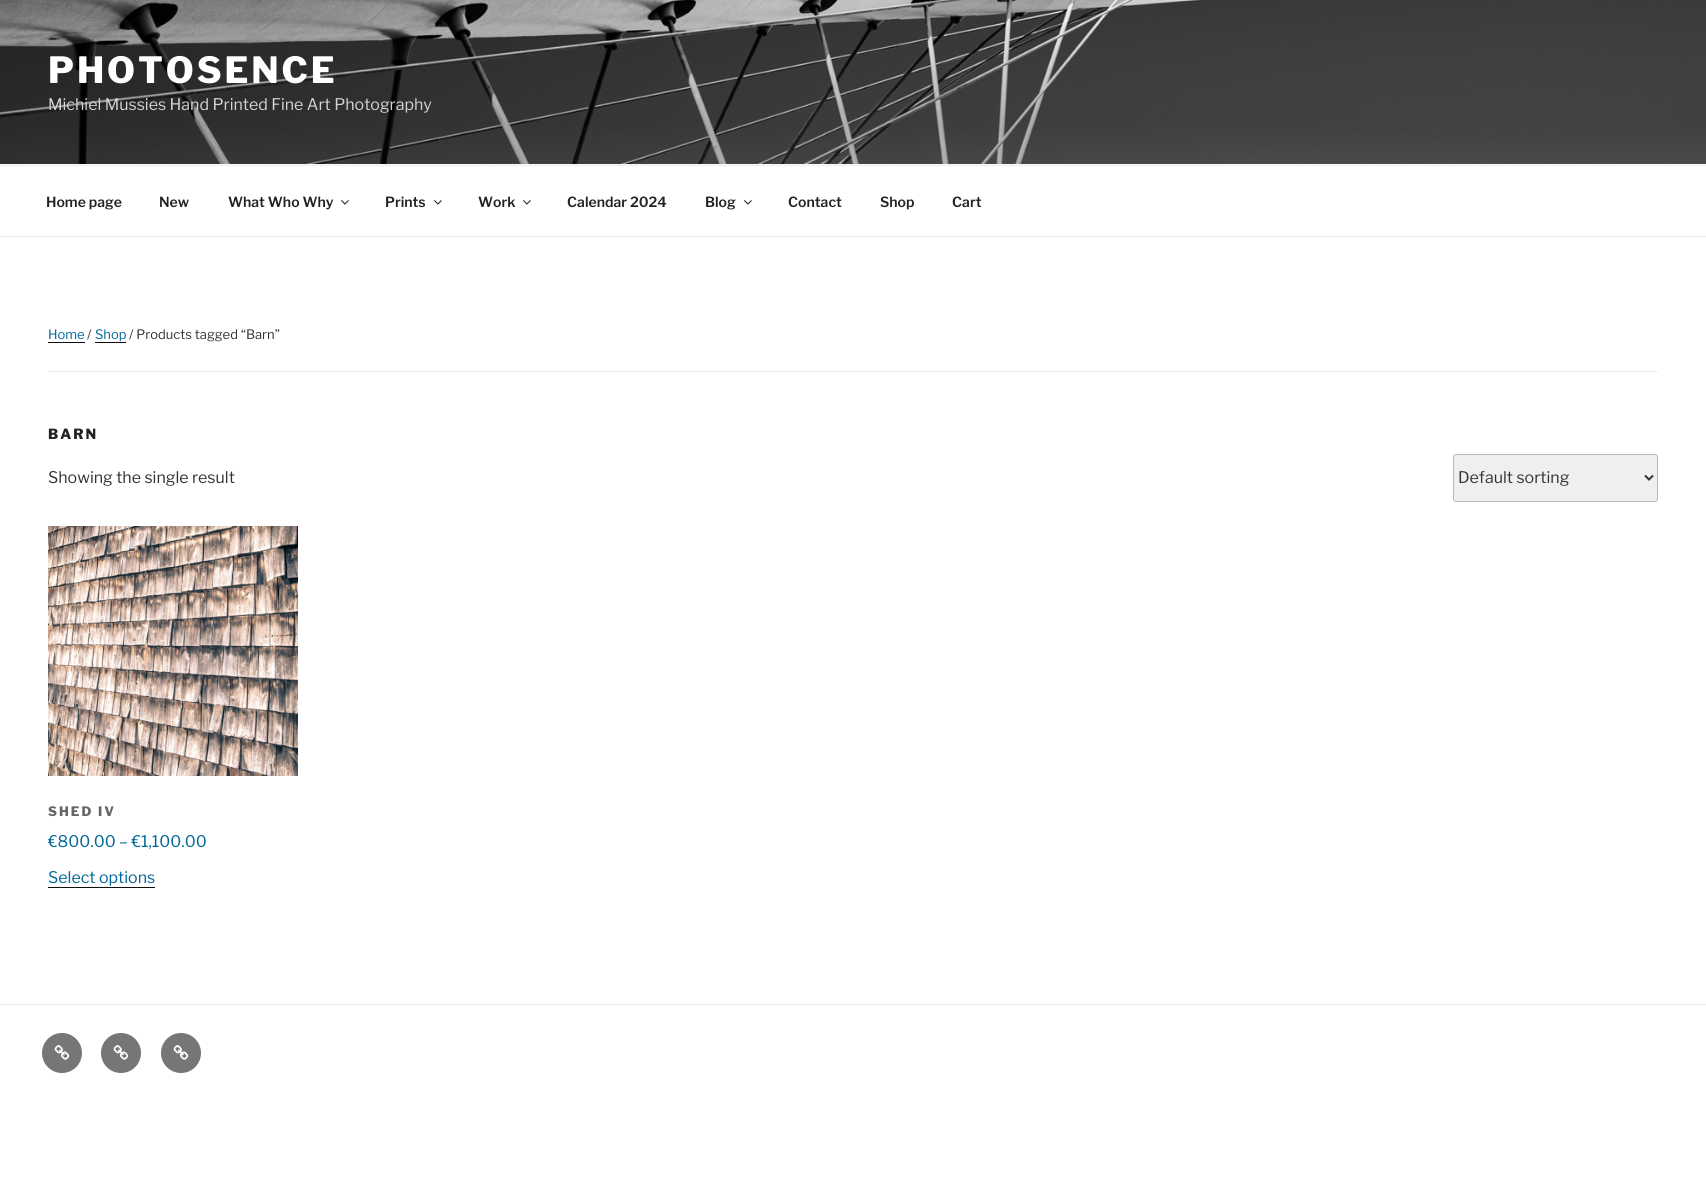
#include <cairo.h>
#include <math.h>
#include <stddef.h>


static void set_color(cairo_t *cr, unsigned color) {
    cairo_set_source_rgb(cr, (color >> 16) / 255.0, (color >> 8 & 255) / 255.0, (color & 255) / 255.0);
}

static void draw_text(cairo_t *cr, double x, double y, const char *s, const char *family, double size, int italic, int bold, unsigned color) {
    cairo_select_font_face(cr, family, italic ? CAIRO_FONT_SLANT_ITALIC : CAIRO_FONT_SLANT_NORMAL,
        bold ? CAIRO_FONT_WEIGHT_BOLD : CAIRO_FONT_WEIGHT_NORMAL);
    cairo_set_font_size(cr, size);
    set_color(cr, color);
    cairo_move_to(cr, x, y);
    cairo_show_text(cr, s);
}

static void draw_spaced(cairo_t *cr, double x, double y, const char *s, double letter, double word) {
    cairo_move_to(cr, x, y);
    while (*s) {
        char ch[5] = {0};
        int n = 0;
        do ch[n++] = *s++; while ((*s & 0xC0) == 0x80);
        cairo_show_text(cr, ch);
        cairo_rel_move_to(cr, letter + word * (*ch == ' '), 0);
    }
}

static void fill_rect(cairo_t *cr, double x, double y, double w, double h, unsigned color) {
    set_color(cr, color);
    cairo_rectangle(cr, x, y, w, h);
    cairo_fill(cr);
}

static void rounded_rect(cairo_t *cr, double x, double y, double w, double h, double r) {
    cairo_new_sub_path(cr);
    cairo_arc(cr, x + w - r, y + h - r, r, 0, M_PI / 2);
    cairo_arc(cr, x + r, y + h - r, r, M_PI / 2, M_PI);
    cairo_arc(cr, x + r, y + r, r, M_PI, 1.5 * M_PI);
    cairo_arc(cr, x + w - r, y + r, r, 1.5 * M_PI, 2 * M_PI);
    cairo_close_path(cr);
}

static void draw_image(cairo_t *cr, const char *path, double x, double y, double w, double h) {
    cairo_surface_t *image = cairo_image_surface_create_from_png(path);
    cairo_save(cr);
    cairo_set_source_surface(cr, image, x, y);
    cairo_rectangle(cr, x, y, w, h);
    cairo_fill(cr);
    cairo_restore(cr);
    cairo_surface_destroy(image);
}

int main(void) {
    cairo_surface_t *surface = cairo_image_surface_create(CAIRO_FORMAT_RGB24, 1706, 1192);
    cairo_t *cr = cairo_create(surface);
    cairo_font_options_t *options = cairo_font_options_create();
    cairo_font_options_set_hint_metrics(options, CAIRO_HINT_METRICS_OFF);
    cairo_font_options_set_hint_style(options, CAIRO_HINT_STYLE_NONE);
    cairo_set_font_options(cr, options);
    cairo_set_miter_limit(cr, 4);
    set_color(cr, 0xFFFFFF);
    cairo_paint(cr);
    fill_rect(cr, 0, 164, 1706, 1, 0xFAFAFA);
    draw_image(cr, "assets/img1.png", 0, 0, 1706, 164);
    cairo_select_font_face(cr, "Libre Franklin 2 Thin", CAIRO_FONT_SLANT_NORMAL, CAIRO_FONT_WEIGHT_NORMAL);
    cairo_set_font_size(cr, 36);
    set_color(cr, 0xFFFFFF);
    draw_spaced(cr, 48, 83, "PHOTOSENCE", 2.9, 0);
    draw_text(cr, 48, 110, "Michiel Mussies Hand Printed Fine Art Photography", "Libre Franklin Thin", 16, 0, 0, 0xD5D5D5);
    fill_rect(cr, 0, 165, 1706, 1, 0xEEEEEE);
    fill_rect(cr, 0, 236, 1706, 1, 0xEEEEEE);
    draw_text(cr, 46, 207, "Home page", "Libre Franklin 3 Thin", 14, 0, 0, 0x222222);
    draw_text(cr, 159, 207, "New", "Libre Franklin 3 Thin", 14, 0, 0, 0x222222);
    draw_text(cr, 228, 207, "What Who Why", "Libre Franklin 3 Thin", 14, 0, 0, 0x222222);
    draw_image(cr, "assets/img2.png", 341, 200, 8, 5);
    draw_text(cr, 385, 207, "Prints", "Libre Franklin 3 Thin", 14, 0, 0, 0x222222);
    draw_image(cr, "assets/img2.png", 434, 200, 8, 5);
    draw_text(cr, 478, 207, "Work", "Libre Franklin 3 Thin", 14, 0, 0, 0x222222);
    draw_image(cr, "assets/img2.png", 523, 200, 8, 5);
    draw_text(cr, 567, 207, "Calendar 2024", "Libre Franklin 3 Thin", 14, 0, 0, 0x222222);
    draw_text(cr, 705, 207, "Blog", "Libre Franklin 3 Thin", 14, 0, 0, 0x222222);
    draw_image(cr, "assets/img2.png", 744, 200, 8, 5);
    draw_text(cr, 788, 207, "Contact", "Libre Franklin 3 Thin", 14, 0, 0, 0x222222);
    draw_text(cr, 880, 207, "Shop", "Libre Franklin 3 Thin", 14, 0, 0, 0x222222);
    draw_text(cr, 952, 207, "Cart", "Libre Franklin 3 Thin", 14, 0, 0, 0x222222);
    fill_rect(cr, 48, 371, 1610, 1, 0xEEEEEE);
    draw_text(cr, 48, 339, "Home", "Libre Franklin Thin", 13, 0, 0, 0x006699);
    fill_rect(cr, 48, 342, 37, 1, 0x0F0F0F);
    draw_text(cr, 87, 339, "/", "Libre Franklin Thin", 13, 0, 0, 0x333333);
    draw_text(cr, 95, 339, "Shop", "Libre Franklin Thin", 13, 0, 0, 0x006699);
    fill_rect(cr, 95, 342, 31, 1, 0x0F0F0F);
    draw_text(cr, 129, 339, "/ Products tagged “Barn”", "Libre Franklin Thin", 13, 0, 0, 0x333333);
    cairo_select_font_face(cr, "Libre Franklin 2 Thin", CAIRO_FONT_SLANT_NORMAL, CAIRO_FONT_WEIGHT_NORMAL);
    cairo_set_font_size(cr, 14);
    set_color(cr, 0x222222);
    draw_spaced(cr, 48, 439, "BARN", 2, 0);
    draw_text(cr, 48, 483, "Showing the single result", "Libre Franklin Thin", 16, 0, 0, 0x333333);
    set_color(cr, 0xEFEFEF);
    rounded_rect(cr, 1453.5, 454.5, 204, 47, 2.5);
    cairo_fill_preserve(cr);
    set_color(cr, 0xBBBBBB);
    cairo_set_line_width(cr, 1);
    cairo_stroke(cr);
    cairo_new_path(cr);
    cairo_move_to(cr, 1645, 475.5);
    cairo_line_to(cr, 1649, 479.5);
    cairo_line_to(cr, 1653, 475.5);
    set_color(cr, 0x333333);
    cairo_set_line_width(cr, 2);
    cairo_stroke(cr);
    draw_text(cr, 1458, 483, "Default sorting", "Libre Franklin Thin", 16, 0, 0, 0x333333);
    draw_image(cr, "assets/img3.png", 48, 526, 250, 250);
    cairo_select_font_face(cr, "Libre Franklin 2 Thin", CAIRO_FONT_SLANT_NORMAL, CAIRO_FONT_WEIGHT_NORMAL);
    cairo_set_font_size(cr, 13);
    set_color(cr, 0x666666);
    draw_spaced(cr, 48, 816, "SHED IV", 2, 0);
    draw_text(cr, 48, 847, "€800.00 – €1,100.00", "Libre Franklin Thin", 16, 0, 0, 0x006699);
    draw_text(cr, 48, 883, "Select options", "Libre Franklin Thin", 16, 0, 0, 0x006699);
    fill_rect(cr, 48, 887, 107, 1, 0x0F0F0F);
    fill_rect(cr, 0, 1004, 1706, 1, 0xEEEEEE);
    set_color(cr, 0x767676);
    cairo_new_path(cr);
    cairo_arc(cr, 62, 1053, 20, 0, 2 * M_PI);
    cairo_fill(cr);
    draw_image(cr, "assets/img4.png", 54, 1045, 16, 15);
    cairo_arc(cr, 121, 1053, 20, 0, 2 * M_PI);
    cairo_fill(cr);
    draw_image(cr, "assets/img4.png", 113, 1045, 16, 15);
    cairo_arc(cr, 181, 1053, 20, 0, 2 * M_PI);
    cairo_fill(cr);
    draw_image(cr, "assets/img4.png", 173, 1045, 16, 15);
    cairo_surface_write_to_png(surface, "output.png");
    cairo_font_options_destroy(options);
    cairo_destroy(cr);
    cairo_surface_destroy(surface);
    return 0;
}
